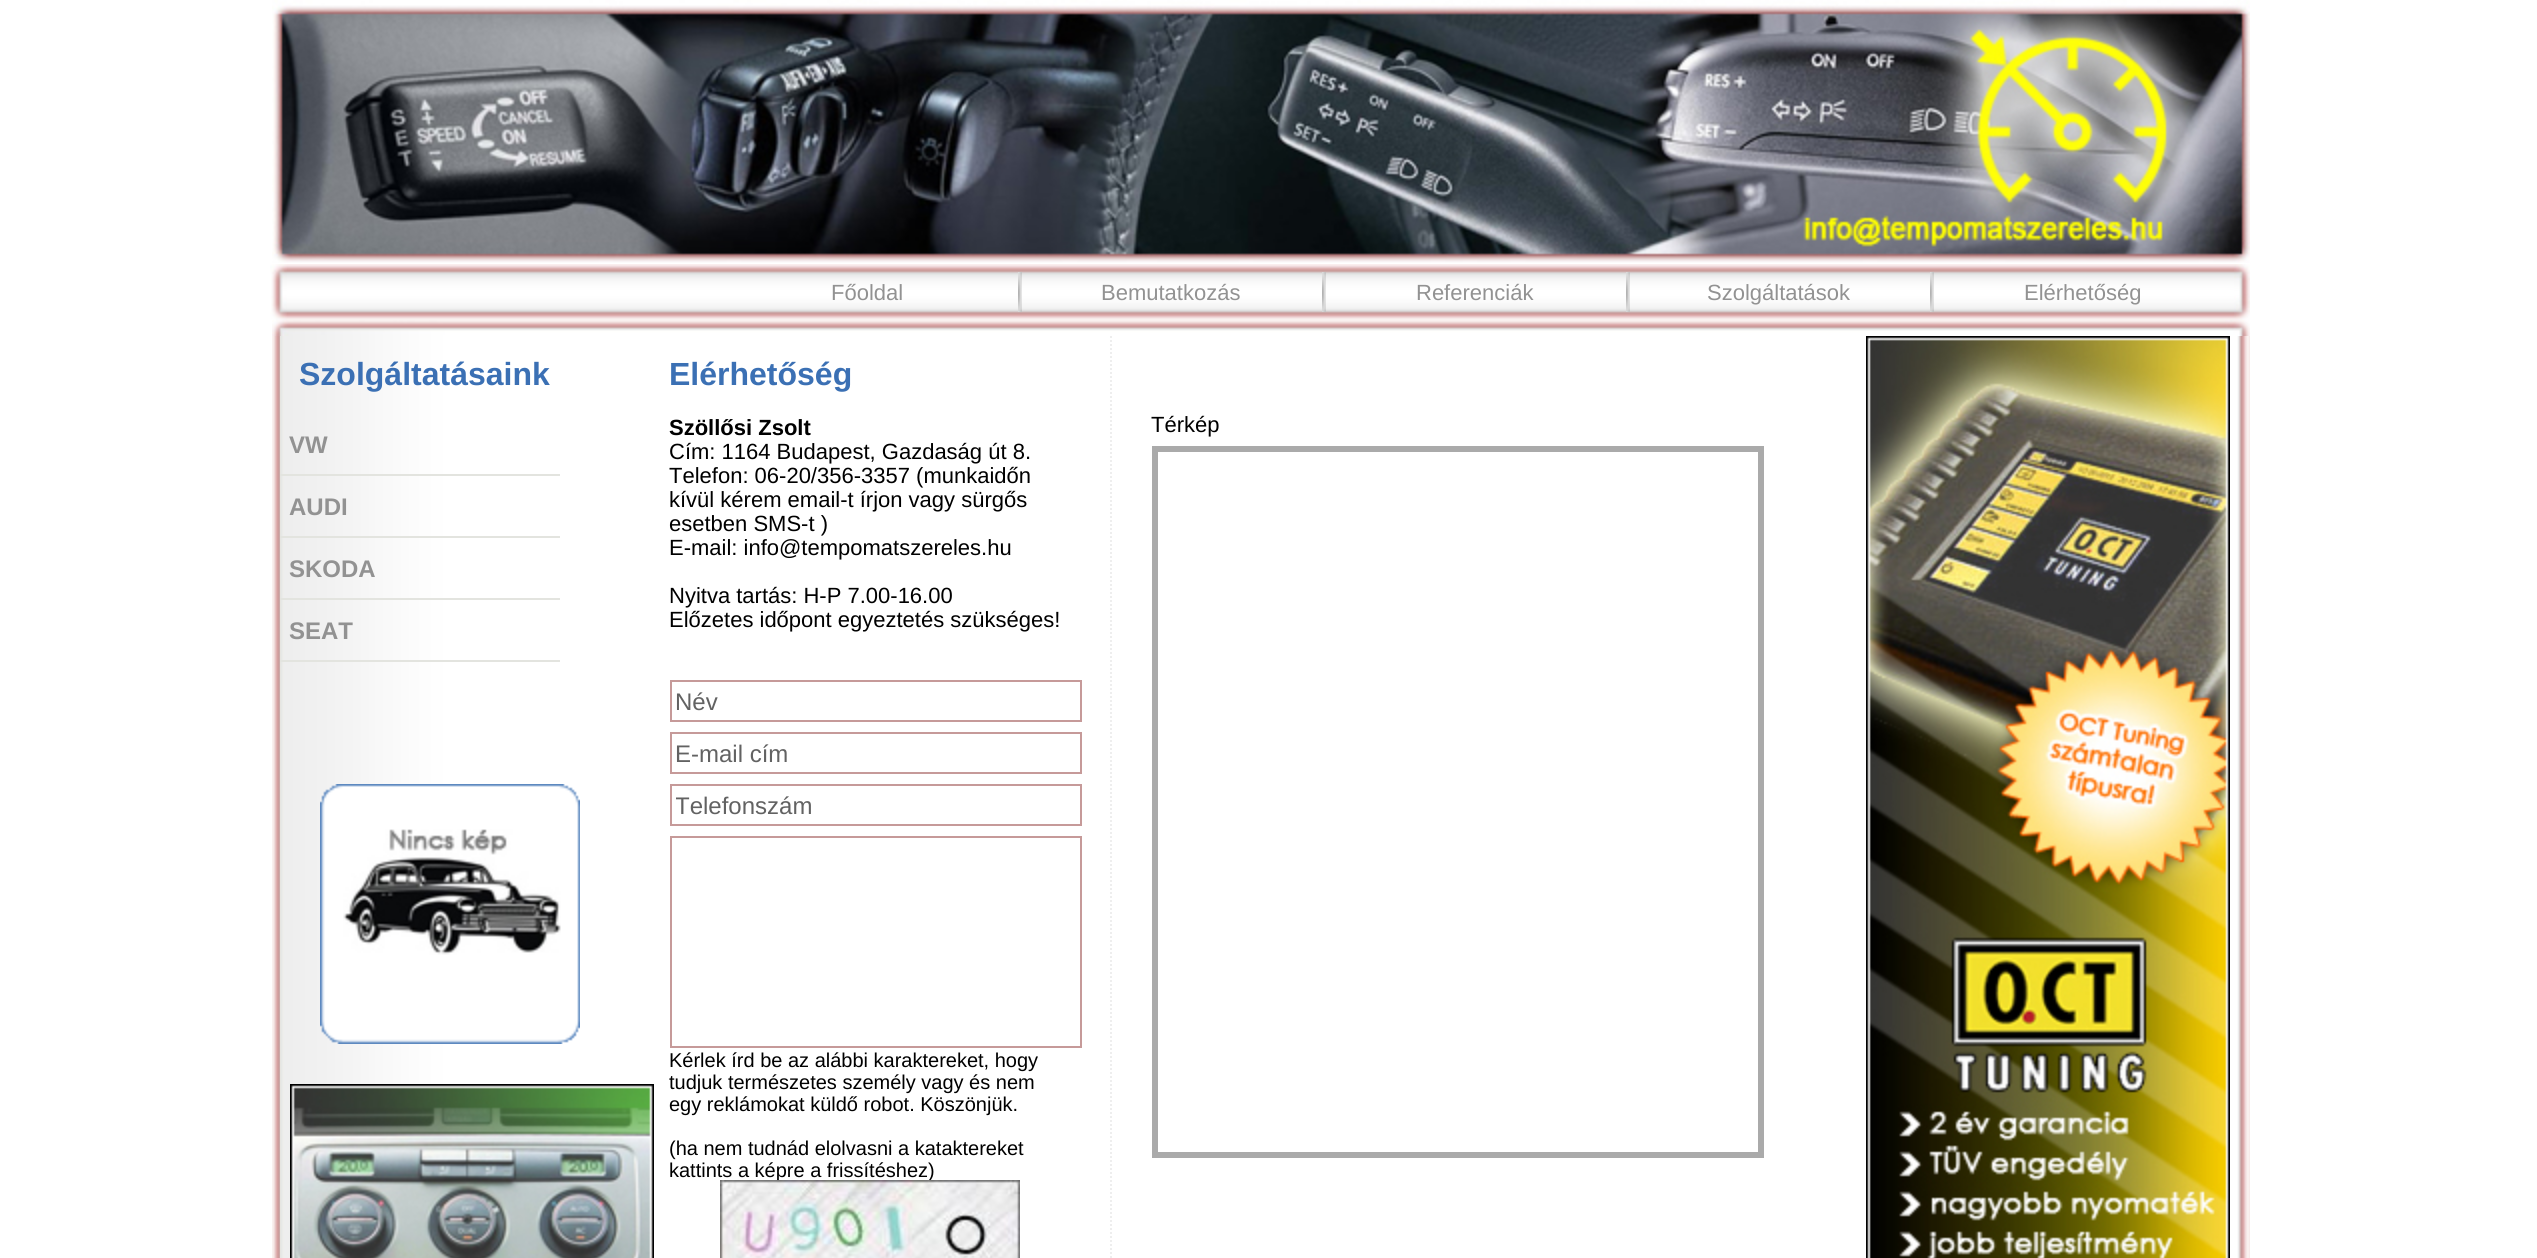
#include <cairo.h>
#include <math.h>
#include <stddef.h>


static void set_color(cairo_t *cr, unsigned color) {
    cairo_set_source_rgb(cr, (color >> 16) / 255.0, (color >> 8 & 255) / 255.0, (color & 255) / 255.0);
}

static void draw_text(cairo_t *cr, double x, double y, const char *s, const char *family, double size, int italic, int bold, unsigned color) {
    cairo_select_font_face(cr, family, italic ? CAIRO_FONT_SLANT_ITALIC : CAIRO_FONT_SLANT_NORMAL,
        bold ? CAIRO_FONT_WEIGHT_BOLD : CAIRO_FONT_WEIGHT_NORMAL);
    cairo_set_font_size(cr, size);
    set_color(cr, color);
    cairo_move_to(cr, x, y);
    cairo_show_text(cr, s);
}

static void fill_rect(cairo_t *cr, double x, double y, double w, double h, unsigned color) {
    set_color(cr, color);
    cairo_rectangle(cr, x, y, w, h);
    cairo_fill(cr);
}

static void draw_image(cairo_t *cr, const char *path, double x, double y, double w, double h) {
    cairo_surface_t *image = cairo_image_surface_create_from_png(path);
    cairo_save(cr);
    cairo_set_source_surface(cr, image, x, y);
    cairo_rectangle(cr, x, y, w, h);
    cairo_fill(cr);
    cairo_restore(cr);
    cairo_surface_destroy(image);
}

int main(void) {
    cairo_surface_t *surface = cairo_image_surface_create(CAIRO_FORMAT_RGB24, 2537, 1258);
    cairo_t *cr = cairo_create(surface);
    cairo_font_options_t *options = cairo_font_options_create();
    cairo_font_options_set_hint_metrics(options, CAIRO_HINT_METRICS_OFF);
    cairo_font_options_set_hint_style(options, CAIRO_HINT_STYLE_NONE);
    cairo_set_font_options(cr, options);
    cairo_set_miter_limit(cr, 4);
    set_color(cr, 0xFFFFFF);
    cairo_paint(cr);
    draw_image(cr, "assets/img1.png", 272, 0, 1978, 263);
    draw_image(cr, "assets/img2.png", 287, 264, 1947, 56);
    draw_image(cr, "assets/img3.png", 270, 264, 17, 56);
    draw_text(cr, 831, 300, "Főoldal", "Liberation Sans", 22, 0, 0, 0x929292);
    draw_image(cr, "assets/img4.png", 1018, 272, 4, 40);
    draw_text(cr, 1101, 300, "Bemutatkozás", "Liberation Sans", 22, 0, 0, 0x929292);
    draw_image(cr, "assets/img4.png", 1322, 272, 4, 40);
    draw_text(cr, 1416, 300, "Referenciák", "Liberation Sans", 22, 0, 0, 0x929292);
    draw_image(cr, "assets/img4.png", 1626, 272, 4, 40);
    draw_text(cr, 1707, 300, "Szolgáltatások", "Liberation Sans", 22, 0, 0, 0x929292);
    draw_image(cr, "assets/img4.png", 1930, 272, 4, 40);
    draw_text(cr, 2024, 300, "Elérhetőség", "Liberation Sans", 22, 0, 0, 0x929292);
    draw_image(cr, "assets/img5.png", 2234, 264, 16, 56);
    draw_image(cr, "assets/img6.png", 272, 336, 1978, 922);
    draw_image(cr, "assets/img7.png", 272, 320, 1978, 16);
    fill_rect(cr, 280, 336, 1, 922, 0xE6E5E1);
    draw_text(cr, 299, 385, "Szolgáltatásaink", "Liberation Sans", 32, 0, 1, 0x3B70B4);
    fill_rect(cr, 280, 474, 280, 2, 0xE3E4DF);
    draw_text(cr, 289, 453, "VW", "Liberation Sans", 24, 0, 1, 0x929292);
    fill_rect(cr, 280, 536, 280, 2, 0xE3E4DF);
    draw_text(cr, 289, 515, "AUDI", "Liberation Sans", 24, 0, 1, 0x929292);
    fill_rect(cr, 280, 598, 280, 2, 0xE3E4DF);
    draw_text(cr, 289, 577, "SKODA", "Liberation Sans", 24, 0, 1, 0x929292);
    fill_rect(cr, 280, 660, 280, 2, 0xE3E4DF);
    draw_text(cr, 289, 639, "SEAT", "Liberation Sans", 24, 0, 1, 0x929292);
    draw_image(cr, "assets/img8.png", 320, 784, 260, 260);
    draw_image(cr, "assets/img9.png", 343, 829, 218, 126);
    draw_image(cr, "assets/img10.png", 290, 1084, 364, 174);
    cairo_new_path(cr);
    cairo_move_to(cr, 1111, 336);
    cairo_line_to(cr, 1111, 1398);
    set_color(cr, 0xEEEEEE);
    cairo_set_dash(cr, (double[]){2, 2}, 2, 0);
    cairo_stroke(cr);
    draw_text(cr, 669, 385, "Elérhetőség", "Liberation Sans", 32, 0, 1, 0x3B70B4);
    draw_text(cr, 669, 435, "Szöllősi Zsolt", "Liberation Sans", 22, 0, 1, 0x000000);
    draw_text(cr, 669, 459, "Cím: 1164 Budapest, Gazdaság út 8.", "Liberation Sans", 22, 0, 0, 0x000000);
    draw_text(cr, 669, 483, "Telefon: 06-20/356-3357 (munkaidőn", "Liberation Sans", 22, 0, 0, 0x000000);
    draw_text(cr, 669, 507, "kívül kérem email-t írjon vagy sürgős", "Liberation Sans", 22, 0, 0, 0x000000);
    draw_text(cr, 669, 531, "esetben SMS-t )", "Liberation Sans", 22, 0, 0, 0x000000);
    draw_text(cr, 669, 555, "E-mail: info@tempomatszereles.hu", "Liberation Sans", 22, 0, 0, 0x000000);
    draw_text(cr, 669, 603, "Nyitva tartás: H-P 7.00-16.00", "Liberation Sans", 22, 0, 0, 0x000000);
    draw_text(cr, 669, 627, "Előzetes időpont egyeztetés szükséges!", "Liberation Sans", 22, 0, 0, 0x000000);
    cairo_rectangle(cr, 671, 681, 410, 40);
    set_color(cr, 0xC69A99);
    cairo_set_dash(cr, NULL, 0, 0);
    cairo_stroke(cr);
    draw_text(cr, 675, 710, "Név", "Liberation Sans", 24, 0, 0, 0x626262);
    cairo_rectangle(cr, 671, 733, 410, 40);
    set_color(cr, 0xC69A99);
    cairo_stroke(cr);
    draw_text(cr, 675, 762, "E-mail cím", "Liberation Sans", 24, 0, 0, 0x626262);
    cairo_rectangle(cr, 671, 785, 410, 40);
    set_color(cr, 0xC69A99);
    cairo_stroke(cr);
    cairo_save(cr);
    cairo_rectangle(cr, 676, 792, 400, 28);
    cairo_clip(cr);
    draw_text(cr, 675, 814, "Telefonszám", "Liberation Sans", 24, 0, 0, 0x626262);
    cairo_restore(cr);
    cairo_rectangle(cr, 671, 837, 410, 210);
    cairo_stroke(cr);
    draw_text(cr, 669, 1067, "Kérlek írd be az alábbi karaktereket, hogy", "Liberation Sans", 20, 0, 0, 0x000000);
    draw_text(cr, 669, 1089, "tudjuk természetes személy vagy és nem", "Liberation Sans", 20, 0, 0, 0x000000);
    draw_text(cr, 669, 1111, "egy reklámokat küldő robot. Köszönjük.", "Liberation Sans", 20, 0, 0, 0x000000);
    draw_text(cr, 669, 1155, "(ha nem tudnád elolvasni a kataktereket", "Liberation Sans", 20, 0, 0, 0x000000);
    draw_text(cr, 669, 1177, "kattints a képre a frissítéshez)", "Liberation Sans", 20, 0, 0, 0x000000);
    draw_image(cr, "assets/img11.png", 720, 1180, 300, 78);
    draw_text(cr, 1151, 432, "Térkép", "Liberation Sans", 22, 0, 0, 0x000000);
    cairo_rectangle(cr, 1155, 449, 606, 706);
    set_color(cr, 0xAAAAAA);
    cairo_set_line_width(cr, 6);
    cairo_stroke(cr);
    draw_image(cr, "assets/img12.png", 1866, 336, 364, 922);
    cairo_surface_write_to_png(surface, "output.png");
    cairo_font_options_destroy(options);
    cairo_destroy(cr);
    cairo_surface_destroy(surface);
    return 0;
}
